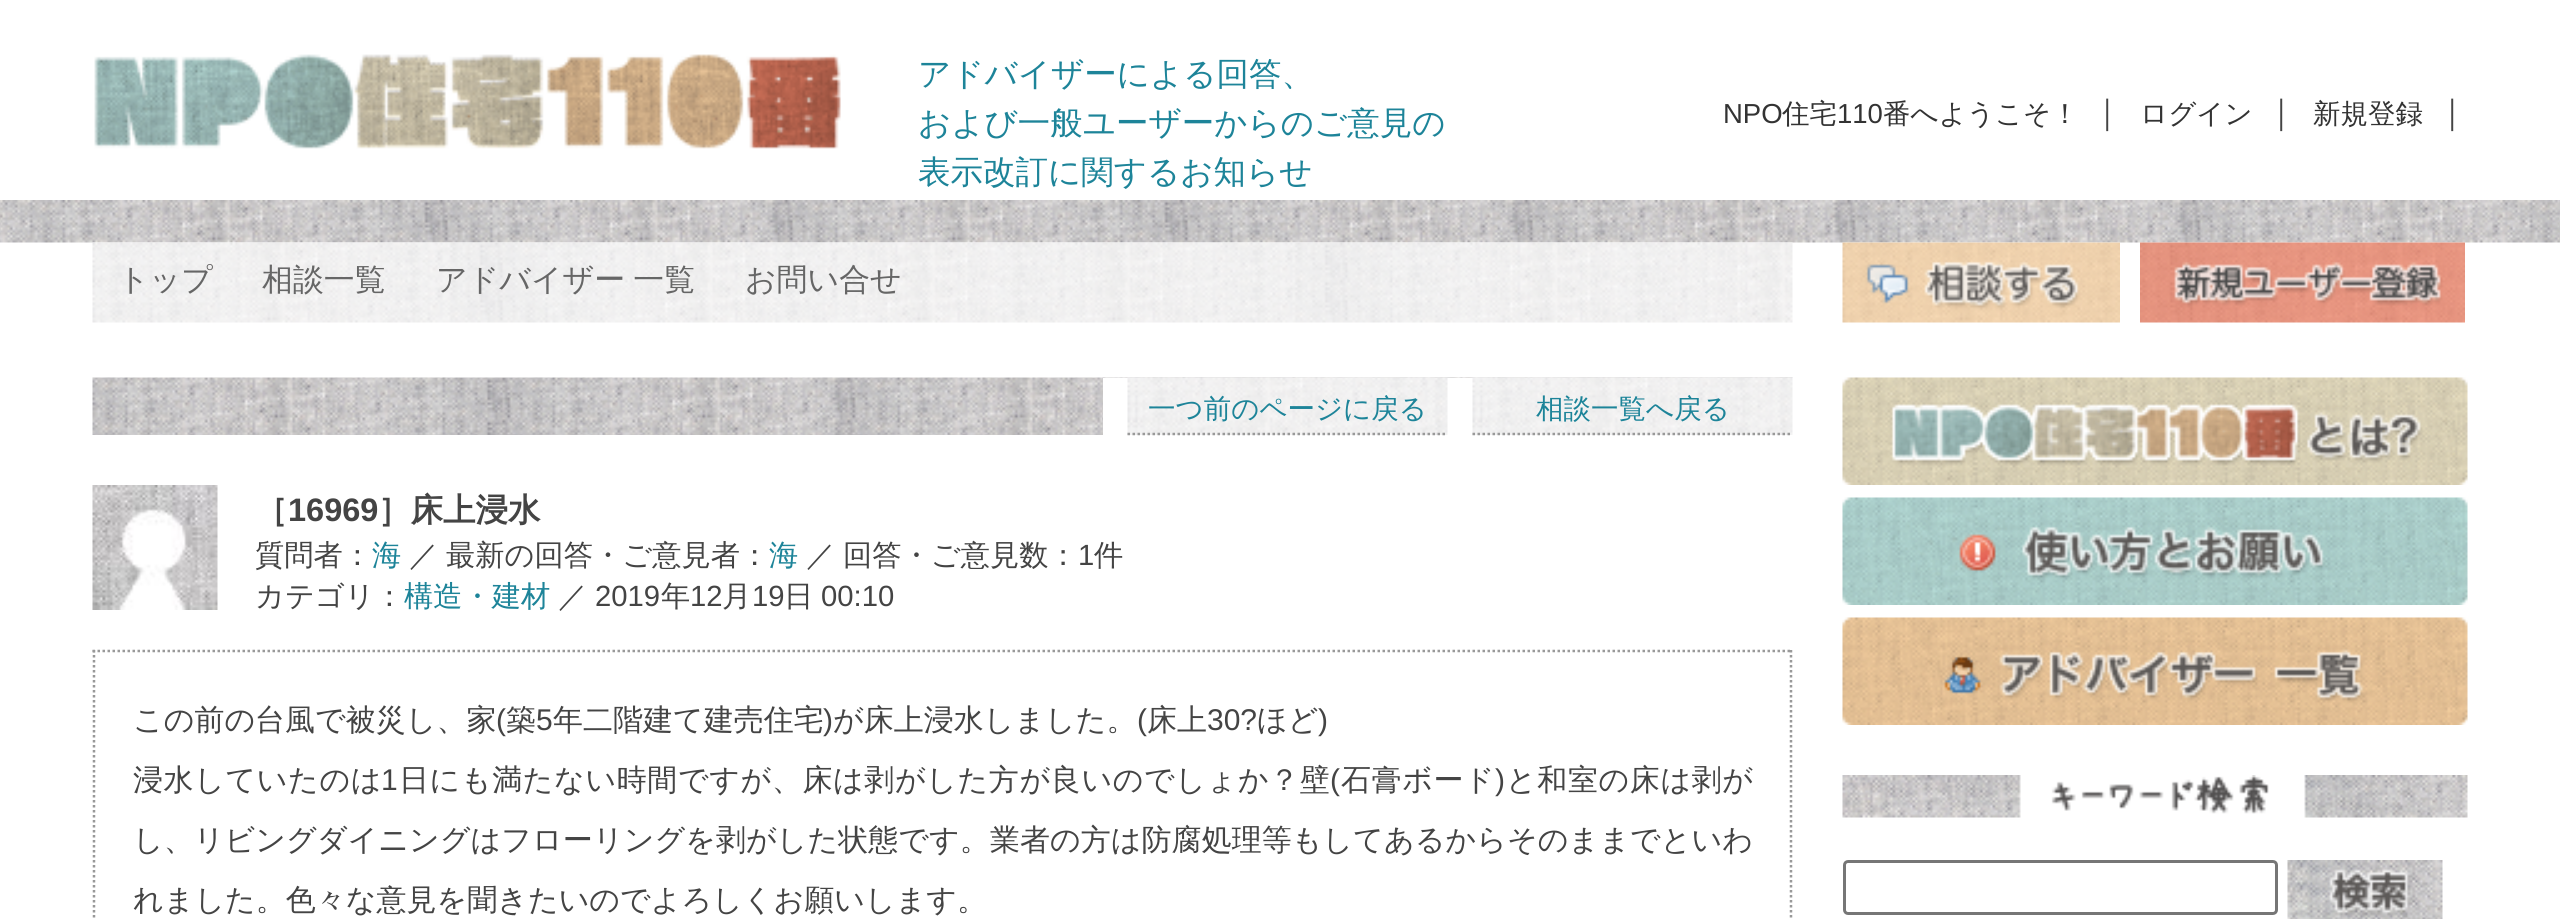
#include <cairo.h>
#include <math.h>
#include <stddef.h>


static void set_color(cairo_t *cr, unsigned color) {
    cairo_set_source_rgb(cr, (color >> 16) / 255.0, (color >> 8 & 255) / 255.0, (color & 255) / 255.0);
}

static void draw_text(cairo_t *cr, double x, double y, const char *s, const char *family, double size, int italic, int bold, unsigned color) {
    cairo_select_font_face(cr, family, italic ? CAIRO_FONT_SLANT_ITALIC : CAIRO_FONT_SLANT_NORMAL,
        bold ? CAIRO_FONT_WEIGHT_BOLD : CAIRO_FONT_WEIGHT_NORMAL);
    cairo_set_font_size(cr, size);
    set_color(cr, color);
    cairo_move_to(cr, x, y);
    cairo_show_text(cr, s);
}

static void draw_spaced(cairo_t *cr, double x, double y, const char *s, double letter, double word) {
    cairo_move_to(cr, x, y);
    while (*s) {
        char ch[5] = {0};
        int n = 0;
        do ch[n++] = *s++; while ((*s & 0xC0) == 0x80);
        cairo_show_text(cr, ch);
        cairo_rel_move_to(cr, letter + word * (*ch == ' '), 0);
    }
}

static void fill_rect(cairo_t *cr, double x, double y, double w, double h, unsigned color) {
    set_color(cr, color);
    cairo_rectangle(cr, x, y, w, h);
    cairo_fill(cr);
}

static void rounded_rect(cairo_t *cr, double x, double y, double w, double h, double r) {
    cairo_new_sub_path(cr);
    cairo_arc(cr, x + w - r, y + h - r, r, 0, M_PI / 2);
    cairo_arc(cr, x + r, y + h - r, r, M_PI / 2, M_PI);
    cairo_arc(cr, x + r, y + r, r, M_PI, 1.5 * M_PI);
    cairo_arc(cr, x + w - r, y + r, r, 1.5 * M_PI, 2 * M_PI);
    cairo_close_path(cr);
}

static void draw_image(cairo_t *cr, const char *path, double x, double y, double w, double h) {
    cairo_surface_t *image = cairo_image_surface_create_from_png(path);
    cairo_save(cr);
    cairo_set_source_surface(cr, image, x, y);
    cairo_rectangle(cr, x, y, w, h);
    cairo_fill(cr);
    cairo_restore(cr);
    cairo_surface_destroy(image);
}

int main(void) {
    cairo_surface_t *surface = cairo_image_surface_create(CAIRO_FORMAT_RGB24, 2560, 919);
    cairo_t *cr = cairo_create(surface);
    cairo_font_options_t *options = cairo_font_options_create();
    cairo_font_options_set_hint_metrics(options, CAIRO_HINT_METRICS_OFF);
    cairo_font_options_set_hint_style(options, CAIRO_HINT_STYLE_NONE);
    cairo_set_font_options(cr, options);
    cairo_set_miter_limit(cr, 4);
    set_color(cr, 0xFFFFFF);
    cairo_paint(cr);
    draw_image(cr, "assets/img1.png", 94, 54, 747, 95);
    draw_text(cr, 918, 85, "アドバイザーによる回答、", "WenQuanYi Zen Hei Medium", 32.5, 0, 0, 0x1D8499);
    draw_text(cr, 918, 134, "および一般ユーザーからのご意見の", "WenQuanYi Zen Hei Medium", 32.5, 0, 0, 0x1D8499);
    draw_text(cr, 918, 183, "表示改訂に関するお知らせ", "WenQuanYi Zen Hei Medium", 32.5, 0, 0, 0x1D8499);
    draw_text(cr, 1723, 123, "NPO", "Liberation Sans", 27.5, 0, 0, 0x333333);
    draw_text(cr, 1782, 123, "住宅", "WenQuanYi Zen Hei Medium", 27.5, 0, 0, 0x333333);
    draw_text(cr, 1837, 123, "110", "Liberation Sans", 27.5, 0, 0, 0x333333);
    draw_text(cr, 1883, 123, "番へようこそ！", "WenQuanYi Zen Hei Medium", 27.5, 0, 0, 0x333333);
    draw_text(cr, 2091, 123, "｜", "WenQuanYi Zen Hei Medium", 32.5, 0, 0, 0x444444);
    draw_text(cr, 2140, 123, "ログイン", "WenQuanYi Zen Hei Medium", 27.5, 0, 0, 0x333333);
    draw_text(cr, 2265, 123, "｜", "WenQuanYi Zen Hei Medium", 32.5, 0, 0, 0x444444);
    draw_text(cr, 2313, 123, "新規登録", "WenQuanYi Zen Hei Medium", 27.5, 0, 0, 0x333333);
    draw_text(cr, 2436, 123, "｜", "WenQuanYi Zen Hei Medium", 32.5, 0, 0, 0x444444);
    draw_image(cr, "assets/img2.png", 0, 200, 2560, 43);
    draw_image(cr, "assets/img3.png", 92, 242, 1701, 81);
    draw_text(cr, 118, 290, "トップ", "WenQuanYi Zen Hei Medium", 30.9, 0, 0, 0x666666);
    draw_text(cr, 262, 290, "相談一覧", "WenQuanYi Zen Hei Medium", 30.9, 0, 0, 0x666666);
    draw_spaced(cr, 436, 290, "アドバイザー 一覧", 0, -1);
    draw_text(cr, 745, 290, "お問い合せ", "WenQuanYi Zen Hei Medium", 30.9, 0, 0, 0x666666);
    draw_image(cr, "assets/img4.png", 1842, 242, 278, 81);
    draw_image(cr, "assets/img5.png", 2140, 242, 325, 81);
    draw_image(cr, "assets/img6.png", 92, 377, 1701, 58);
    fill_rect(cr, 1103, 378, 690, 57, 0xFFFFFF);
    draw_image(cr, "assets/img7.png", 1127, 377, 321, 58);
    cairo_new_path(cr);
    cairo_move_to(cr, 1127.5, 434);
    cairo_line_to(cr, 1447.5, 434);
    set_color(cr, 0x999999);
    cairo_set_line_width(cr, 2.5);
    cairo_set_dash(cr, (double[]){2.5, 2.5}, 2, 0);
    cairo_stroke(cr);
    draw_text(cr, 1148, 418, "一つ前のページに戻る", "WenQuanYi Zen Hei Medium", 27.5, 0, 0, 0x1D8499);
    draw_image(cr, "assets/img8.png", 1472, 377, 321, 58);
    cairo_new_path(cr);
    cairo_move_to(cr, 1472.5, 434);
    cairo_line_to(cr, 1792.5, 434);
    set_color(cr, 0x999999);
    cairo_stroke(cr);
    draw_text(cr, 1536, 418, "相談一覧へ戻る", "WenQuanYi Zen Hei Medium", 27.5, 0, 0, 0x1D8499);
    draw_image(cr, "assets/img9.png", 92, 485, 126, 125);
    draw_text(cr, 255, 521, "［", "WenQuanYi Zen Hei", 32.5, 0, 1, 0x444444);
    draw_text(cr, 288, 521, "16969", "Liberation Sans", 32.5, 0, 1, 0x444444);
    draw_text(cr, 378, 521, "］床上浸水", "WenQuanYi Zen Hei", 32.5, 0, 1, 0x444444);
    draw_text(cr, 255, 565, "質問者：", "WenQuanYi Zen Hei Medium", 29.25, 0, 0, 0x444444);
    draw_text(cr, 372, 565, "海", "WenQuanYi Zen Hei Medium", 29.25, 0, 0, 0x1D8499);
    set_color(cr, 0x444444);
    draw_spaced(cr, 409, 565, "／ 最新の回答・ご意見者：", 0, -1);
    draw_text(cr, 769, 565, "海", "WenQuanYi Zen Hei Medium", 29.25, 0, 0, 0x1D8499);
    set_color(cr, 0x444444);
    draw_spaced(cr, 806, 565, "／ 回答・ご意見数：", 0, -1);
    draw_text(cr, 1078, 565, "1", "Liberation Sans", 29.25, 0, 0, 0x444444);
    draw_text(cr, 1094, 565, "件", "WenQuanYi Zen Hei Medium", 29.25, 0, 0, 0x444444);
    draw_text(cr, 255, 606, "カテゴリ：", "WenQuanYi Zen Hei Medium", 29.25, 0, 0, 0x444444);
    draw_text(cr, 404, 606, "構造・建材", "WenQuanYi Zen Hei Medium", 29.25, 0, 0, 0x1D8499);
    draw_text(cr, 558, 606, "／", "WenQuanYi Zen Hei Medium", 29.25, 0, 0, 0x444444);
    draw_text(cr, 595, 606, "2019", "Liberation Sans", 29.25, 0, 0, 0x444444);
    draw_text(cr, 661, 606, "年", "WenQuanYi Zen Hei Medium", 29.25, 0, 0, 0x444444);
    draw_text(cr, 690, 606, "12", "Liberation Sans", 29.25, 0, 0, 0x444444);
    draw_text(cr, 722, 606, "月", "WenQuanYi Zen Hei Medium", 29.25, 0, 0, 0x444444);
    draw_text(cr, 752, 606, "19", "Liberation Sans", 29.25, 0, 0, 0x444444);
    draw_text(cr, 784, 606, "日", "WenQuanYi Zen Hei Medium", 29.25, 0, 0, 0x444444);
    draw_text(cr, 821, 606, "00:10", "Liberation Sans", 29.25, 0, 0, 0x444444);
    cairo_new_path(cr);
    cairo_move_to(cr, 92.5, 651);
    cairo_line_to(cr, 1792.5, 651);
    set_color(cr, 0x999999);
    cairo_stroke(cr);
    cairo_new_path(cr);
    cairo_move_to(cr, 1791, 650);
    cairo_line_to(cr, 1791, 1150);
    cairo_stroke(cr);
    cairo_new_path(cr);
    cairo_move_to(cr, 94, 650);
    cairo_line_to(cr, 94, 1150);
    cairo_stroke(cr);
    draw_text(cr, 133, 730, "この前の台風で被災し、家", "WenQuanYi Zen Hei Medium", 30, 0, 0, 0x444444);
    draw_text(cr, 496, 730, "(", "Liberation Sans", 30, 0, 0, 0x444444);
    draw_text(cr, 506, 730, "築", "WenQuanYi Zen Hei Medium", 30, 0, 0, 0x444444);
    draw_text(cr, 536, 730, "5", "Liberation Sans", 30, 0, 0, 0x444444);
    draw_text(cr, 553, 730, "年二階建て建売住宅", "WenQuanYi Zen Hei Medium", 30, 0, 0, 0x444444);
    draw_text(cr, 823, 730, ")", "Liberation Sans", 30, 0, 0, 0x444444);
    draw_text(cr, 833, 730, "が床上浸水しました。", "WenQuanYi Zen Hei Medium", 30, 0, 0, 0x444444);
    draw_text(cr, 1137, 730, "(", "Liberation Sans", 30, 0, 0, 0x444444);
    draw_text(cr, 1147, 730, "床上", "WenQuanYi Zen Hei Medium", 30, 0, 0, 0x444444);
    draw_text(cr, 1207, 730, "30?", "Liberation Sans", 30, 0, 0, 0x444444);
    draw_text(cr, 1257, 730, "ほど", "WenQuanYi Zen Hei Medium", 30, 0, 0, 0x444444);
    draw_text(cr, 1318, 730, ")", "Liberation Sans", 30, 0, 0, 0x444444);
    cairo_select_font_face(cr, "WenQuanYi Zen Hei Medium", CAIRO_FONT_SLANT_NORMAL, CAIRO_FONT_WEIGHT_NORMAL);
    draw_spaced(cr, 133, 790, "浸水していたのは", 0.6, 0);
    cairo_select_font_face(cr, "Liberation Sans", CAIRO_FONT_SLANT_NORMAL, CAIRO_FONT_WEIGHT_NORMAL);
    draw_spaced(cr, 381, 790, "1", 0.6, 0);
    cairo_select_font_face(cr, "WenQuanYi Zen Hei Medium", CAIRO_FONT_SLANT_NORMAL, CAIRO_FONT_WEIGHT_NORMAL);
    draw_spaced(cr, 399, 790, "日にも満たない時間ですが、床は剥がした方が良いのでしょか？壁", 0.6, 0);
    cairo_select_font_face(cr, "Liberation Sans", CAIRO_FONT_SLANT_NORMAL, CAIRO_FONT_WEIGHT_NORMAL);
    draw_spaced(cr, 1330, 790, "(", 0.6, 0);
    cairo_select_font_face(cr, "WenQuanYi Zen Hei Medium", CAIRO_FONT_SLANT_NORMAL, CAIRO_FONT_WEIGHT_NORMAL);
    draw_spaced(cr, 1341, 790, "石膏ボード", 0.6, 0);
    cairo_select_font_face(cr, "Liberation Sans", CAIRO_FONT_SLANT_NORMAL, CAIRO_FONT_WEIGHT_NORMAL);
    draw_spaced(cr, 1495, 790, ")", 0.6, 0);
    cairo_select_font_face(cr, "WenQuanYi Zen Hei Medium", CAIRO_FONT_SLANT_NORMAL, CAIRO_FONT_WEIGHT_NORMAL);
    draw_spaced(cr, 1506, 790, "と和室の床は剥が", 0.6, 0);
    draw_spaced(cr, 133, 850, "し、リビングダイニングはフローリングを剥がした状態です。業者の方は防腐処理等もしてあるからそのままでといわ", 0.05, 0);
    draw_text(cr, 133, 910, "れました。色々な意見を聞きたいのでよろしくお願いします。", "WenQuanYi Zen Hei Medium", 30, 0, 0, 0x444444);
    draw_image(cr, "assets/img10.png", 1842, 377, 626, 108);
    draw_image(cr, "assets/img11.png", 1842, 497, 626, 108);
    draw_image(cr, "assets/img12.png", 1842, 617, 626, 108);
    draw_image(cr, "assets/img13.png", 1842, 775, 626, 43);
    rounded_rect(cr, 1844.5, 861.5, 432, 52, 3.5);
    set_color(cr, 0x767676);
    cairo_set_line_width(cr, 3);
    cairo_set_dash(cr, NULL, 0, 0);
    cairo_stroke(cr);
    draw_image(cr, "assets/img14.png", 2287, 860, 156, 59);
    cairo_surface_write_to_png(surface, "output.png");
    cairo_font_options_destroy(options);
    cairo_destroy(cr);
    cairo_surface_destroy(surface);
    return 0;
}
